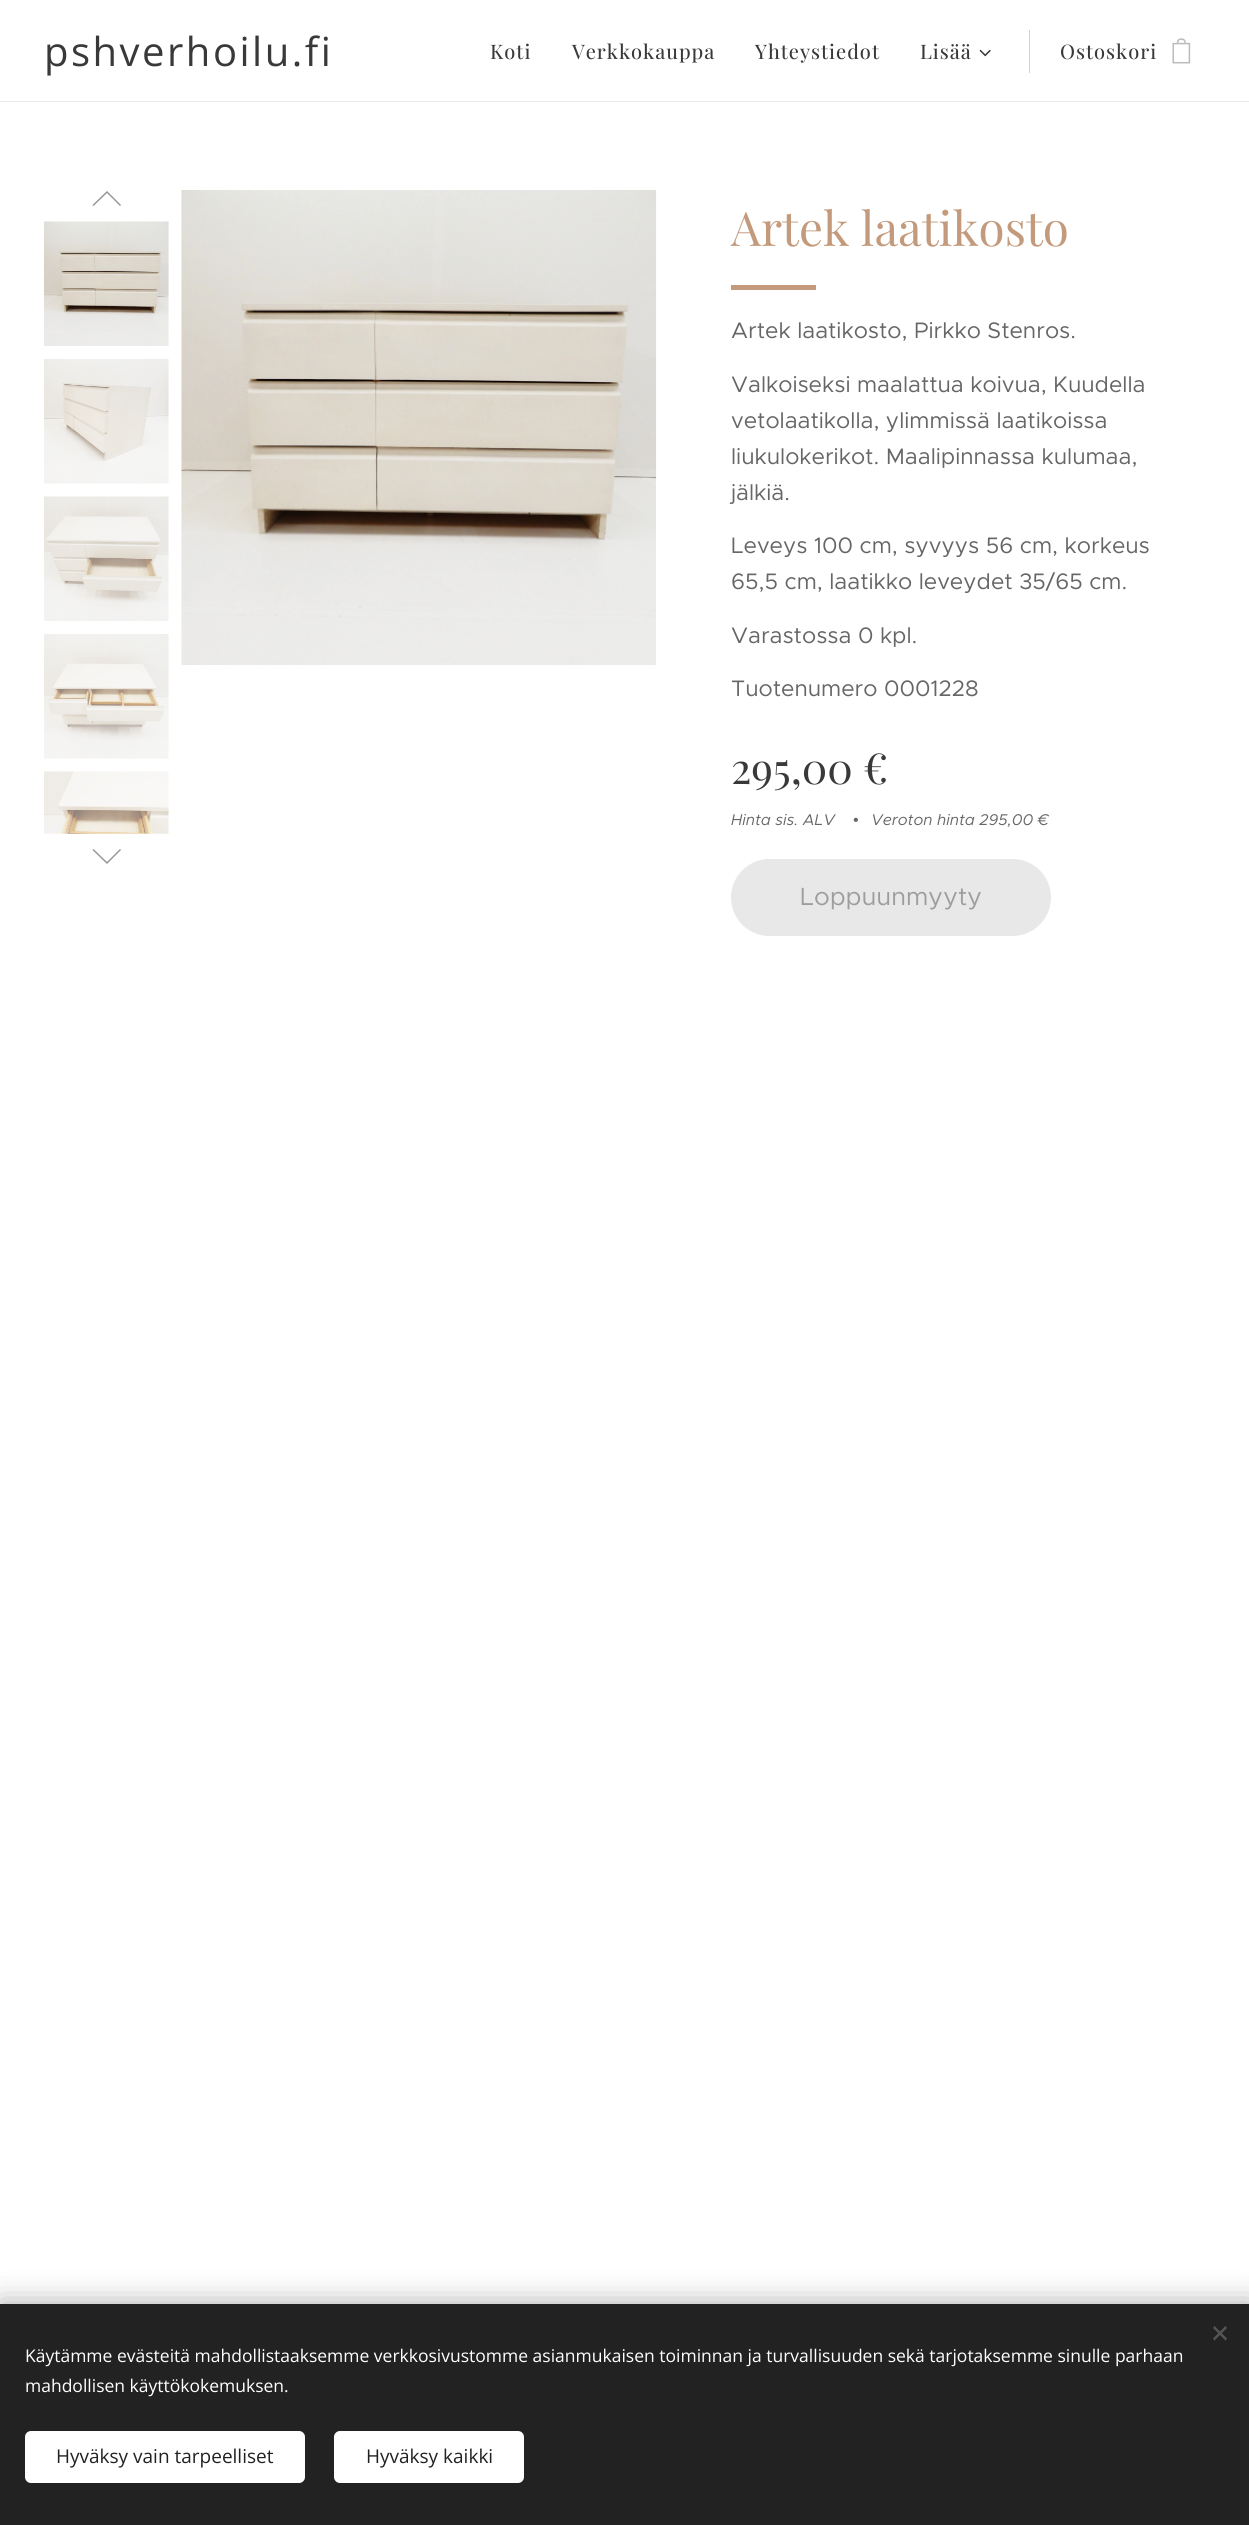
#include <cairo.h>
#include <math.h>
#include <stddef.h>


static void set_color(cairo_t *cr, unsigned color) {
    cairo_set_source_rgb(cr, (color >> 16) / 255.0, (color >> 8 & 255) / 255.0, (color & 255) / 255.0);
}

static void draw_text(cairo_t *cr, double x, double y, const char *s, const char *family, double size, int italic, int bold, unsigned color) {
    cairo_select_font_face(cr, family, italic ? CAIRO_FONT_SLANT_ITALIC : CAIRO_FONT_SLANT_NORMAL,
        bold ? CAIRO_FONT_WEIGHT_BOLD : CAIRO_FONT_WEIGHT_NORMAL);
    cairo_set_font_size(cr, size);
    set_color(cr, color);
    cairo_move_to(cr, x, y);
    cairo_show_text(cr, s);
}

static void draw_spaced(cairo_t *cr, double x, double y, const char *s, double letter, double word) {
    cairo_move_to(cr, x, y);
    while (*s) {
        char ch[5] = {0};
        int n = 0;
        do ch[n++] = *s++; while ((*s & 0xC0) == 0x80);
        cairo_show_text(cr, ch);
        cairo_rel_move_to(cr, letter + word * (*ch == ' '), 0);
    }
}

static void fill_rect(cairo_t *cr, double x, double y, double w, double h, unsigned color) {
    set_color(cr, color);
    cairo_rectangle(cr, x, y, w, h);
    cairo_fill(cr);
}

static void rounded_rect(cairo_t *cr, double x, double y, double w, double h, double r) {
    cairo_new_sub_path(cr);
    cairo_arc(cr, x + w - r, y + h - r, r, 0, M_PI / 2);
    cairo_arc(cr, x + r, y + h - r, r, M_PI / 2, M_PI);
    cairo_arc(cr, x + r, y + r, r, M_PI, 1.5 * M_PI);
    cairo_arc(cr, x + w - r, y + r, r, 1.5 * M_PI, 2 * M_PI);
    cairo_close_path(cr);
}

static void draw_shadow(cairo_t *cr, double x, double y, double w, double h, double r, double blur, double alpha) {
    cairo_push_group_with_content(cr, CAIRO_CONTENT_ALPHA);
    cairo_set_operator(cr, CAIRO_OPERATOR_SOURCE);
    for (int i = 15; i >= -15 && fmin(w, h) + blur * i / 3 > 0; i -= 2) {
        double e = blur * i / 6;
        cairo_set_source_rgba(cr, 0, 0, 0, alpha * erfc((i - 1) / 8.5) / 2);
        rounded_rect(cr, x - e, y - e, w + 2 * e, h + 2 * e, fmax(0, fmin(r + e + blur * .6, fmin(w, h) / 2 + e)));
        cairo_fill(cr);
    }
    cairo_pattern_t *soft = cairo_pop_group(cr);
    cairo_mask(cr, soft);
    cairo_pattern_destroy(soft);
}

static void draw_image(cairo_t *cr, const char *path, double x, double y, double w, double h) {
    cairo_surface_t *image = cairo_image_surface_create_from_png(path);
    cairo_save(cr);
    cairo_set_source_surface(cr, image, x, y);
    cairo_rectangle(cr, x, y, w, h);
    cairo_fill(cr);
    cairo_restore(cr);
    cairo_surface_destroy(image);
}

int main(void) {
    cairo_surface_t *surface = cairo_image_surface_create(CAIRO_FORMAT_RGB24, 1249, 2525);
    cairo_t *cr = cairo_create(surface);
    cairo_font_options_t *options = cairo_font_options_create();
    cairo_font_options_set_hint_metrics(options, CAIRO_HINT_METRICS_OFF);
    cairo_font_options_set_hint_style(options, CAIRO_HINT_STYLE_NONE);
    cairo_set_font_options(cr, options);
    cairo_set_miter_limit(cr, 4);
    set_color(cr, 0xFFFFFF);
    cairo_paint(cr);
    cairo_select_font_face(cr, "Open Sans", CAIRO_FONT_SLANT_NORMAL, CAIRO_FONT_WEIGHT_NORMAL);
    cairo_set_font_size(cr, 40);
    set_color(cr, 0x393939);
    draw_spaced(cr, 44, 66, "pshverhoilu.fi", 2.5, 0);
    cairo_select_font_face(cr, "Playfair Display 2", CAIRO_FONT_SLANT_NORMAL, CAIRO_FONT_WEIGHT_NORMAL);
    cairo_set_font_size(cr, 20);
    draw_spaced(cr, 490, 59, "Koti", 1, 0);
    draw_spaced(cr, 572, 59, "Verkkokauppa", 1, 0);
    draw_spaced(cr, 755, 59, "Yhteystiedot", 1, 0);
    draw_spaced(cr, 920, 59, "Lisää", 1, 0);
    draw_image(cr, "assets/img1.png", 979, 49, 12, 8);
    fill_rect(cr, 1029, 30, 1, 43, 0xD1D1D1);
    set_color(cr, 0x393939);
    draw_spaced(cr, 1060, 59, "Ostoskori", 1, 0);
    draw_image(cr, "assets/img2.png", 1172, 38, 19, 26);
    fill_rect(cr, 0, 101, 1249, 1, 0xE8E8E8);
    set_color(cr, 0x949494);
    cairo_new_path(cr);
    cairo_move_to(cr, 92.5, 205);
    cairo_line_to(cr, 93.5, 206);
    cairo_line_to(cr, 107, 193);
    cairo_line_to(cr, 120, 206);
    cairo_line_to(cr, 121, 205);
    cairo_line_to(cr, 107, 191);
    cairo_close_path(cr);
    cairo_fill(cr);
    draw_image(cr, "assets/img3.png", 43, 221, 126, 125);
    draw_image(cr, "assets/img4.png", 44, 359, 125, 125);
    draw_image(cr, "assets/img5.png", 44, 496, 125, 125);
    draw_image(cr, "assets/img6.png", 44, 634, 125, 125);
    draw_image(cr, "assets/img7.png", 44, 771, 125, 63);
    cairo_new_path(cr);
    cairo_move_to(cr, 121, 850);
    cairo_line_to(cr, 120, 849);
    cairo_line_to(cr, 107, 862);
    cairo_line_to(cr, 93.5, 849);
    cairo_line_to(cr, 92.5, 850);
    cairo_line_to(cr, 107, 864);
    cairo_close_path(cr);
    cairo_fill(cr);
    draw_image(cr, "assets/img8.png", 181, 190, 476, 475);
    draw_text(cr, 731, 246, "Artek laatikosto", "Playfair Display", 47.5, 0, 0, 0xC39B7C);
    fill_rect(cr, 731, 285, 85, 5, 0xC39B7C);
    draw_text(cr, 731, 338, "Artek laatikosto, Pirkko Stenros.", "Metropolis", 22.5, 0, 0, 0x666666);
    draw_text(cr, 731, 392, "Valkoiseksi maalattua koivua, Kuudella", "Metropolis", 22.5, 0, 0, 0x666666);
    draw_text(cr, 731, 428, "vetolaatikolla, ylimmissä laatikoissa", "Metropolis", 22.5, 0, 0, 0x666666);
    draw_text(cr, 731, 464, "liukulokerikot. Maalipinnassa kulumaa,", "Metropolis", 22.5, 0, 0, 0x666666);
    draw_text(cr, 731, 500, "jälkiä.", "Metropolis", 22.5, 0, 0, 0x666666);
    draw_text(cr, 731, 553, "Leveys 100 cm, syvyys 56 cm, korkeus", "Metropolis", 22.5, 0, 0, 0x666666);
    draw_text(cr, 731, 589, "65,5 cm, laatikko leveydet 35/65 cm.", "Metropolis", 22.5, 0, 0, 0x666666);
    draw_text(cr, 731, 643, "Varastossa 0 kpl.", "Metropolis", 22.5, 0, 0, 0x666666);
    draw_text(cr, 731, 696, "Tuotenumero 0001228", "Metropolis", 22.5, 0, 0, 0x666666);
    draw_text(cr, 731, 784, "295,00 €", "Playfair Display", 42.5, 0, 0, 0x393939);
    draw_text(cr, 731, 825, "Hinta sis. ALV", "Metropolis", 15.6, 1, 0, 0x666666);
    draw_text(cr, 853, 825, "•", "Liberation Sans", 15.6, 1, 0, 0x666666);
    draw_text(cr, 871, 825, "Veroton hinta 295,00 €", "Metropolis", 15.6, 1, 0, 0x666666);
    set_color(cr, 0xE8E8E8);
    rounded_rect(cr, 731.5, 859.5, 319, 76, 38);
    cairo_fill_preserve(cr);
    cairo_set_line_width(cr, 1);
    cairo_stroke(cr);
    draw_text(cr, 800, 905, "Loppuunmyyty", "Metropolis", 25, 0, 0, 0x9D9D9D);
    set_color(cr, 0x000000);
    draw_shadow(cr, 0, 2304, 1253, 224, 0, 15.5, 0.33);
    fill_rect(cr, 0, 2304, 1249, 221, 0x222222);
    set_color(cr, 0x555555);
    cairo_new_path(cr);
    cairo_move_to(cr, 1213, 2338.5);
    cairo_line_to(cr, 1225.5, 2326);
    cairo_line_to(cr, 1227, 2328);
    cairo_line_to(cr, 1214.5, 2340.5);
    cairo_close_path(cr);
    cairo_fill(cr);
    cairo_new_path(cr);
    cairo_move_to(cr, 1214.5, 2326);
    cairo_line_to(cr, 1227, 2338.5);
    cairo_line_to(cr, 1225.5, 2340.5);
    cairo_line_to(cr, 1213, 2328);
    cairo_close_path(cr);
    cairo_fill(cr);
    draw_text(cr, 25, 2362, "Käytämme evästeitä mahdollistaaksemme verkkosivustomme asianmukaisen toiminnan ja turvallisuuden sekä tarjotaksemme sinulle parhaan", "Open Sans", 17.5, 0, 0, 0xFFFFFF);
    draw_text(cr, 25, 2392, "mahdollisen käyttökokemuksen.", "Open Sans", 17.5, 0, 0, 0xFFFFFF);
    rounded_rect(cr, 25, 2431, 280, 52, 6);
    cairo_fill(cr);
    draw_text(cr, 56, 2463, "Hyväksy vain tarpeelliset", "Open Sans", 19, 0, 0, 0x222222);
    set_color(cr, 0xFFFFFF);
    rounded_rect(cr, 334, 2431, 190, 52, 6);
    cairo_fill(cr);
    draw_text(cr, 366, 2463, "Hyväksy kaikki", "Open Sans", 19, 0, 0, 0x222222);
    cairo_surface_write_to_png(surface, "output.png");
    cairo_font_options_destroy(options);
    cairo_destroy(cr);
    cairo_surface_destroy(surface);
    return 0;
}
